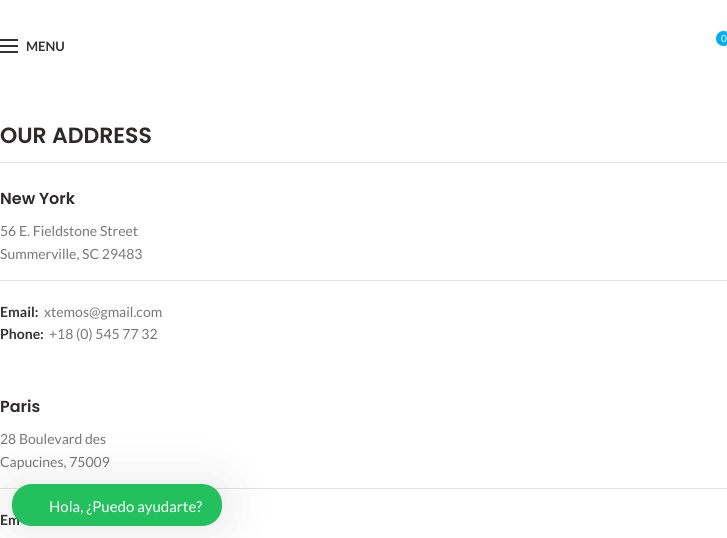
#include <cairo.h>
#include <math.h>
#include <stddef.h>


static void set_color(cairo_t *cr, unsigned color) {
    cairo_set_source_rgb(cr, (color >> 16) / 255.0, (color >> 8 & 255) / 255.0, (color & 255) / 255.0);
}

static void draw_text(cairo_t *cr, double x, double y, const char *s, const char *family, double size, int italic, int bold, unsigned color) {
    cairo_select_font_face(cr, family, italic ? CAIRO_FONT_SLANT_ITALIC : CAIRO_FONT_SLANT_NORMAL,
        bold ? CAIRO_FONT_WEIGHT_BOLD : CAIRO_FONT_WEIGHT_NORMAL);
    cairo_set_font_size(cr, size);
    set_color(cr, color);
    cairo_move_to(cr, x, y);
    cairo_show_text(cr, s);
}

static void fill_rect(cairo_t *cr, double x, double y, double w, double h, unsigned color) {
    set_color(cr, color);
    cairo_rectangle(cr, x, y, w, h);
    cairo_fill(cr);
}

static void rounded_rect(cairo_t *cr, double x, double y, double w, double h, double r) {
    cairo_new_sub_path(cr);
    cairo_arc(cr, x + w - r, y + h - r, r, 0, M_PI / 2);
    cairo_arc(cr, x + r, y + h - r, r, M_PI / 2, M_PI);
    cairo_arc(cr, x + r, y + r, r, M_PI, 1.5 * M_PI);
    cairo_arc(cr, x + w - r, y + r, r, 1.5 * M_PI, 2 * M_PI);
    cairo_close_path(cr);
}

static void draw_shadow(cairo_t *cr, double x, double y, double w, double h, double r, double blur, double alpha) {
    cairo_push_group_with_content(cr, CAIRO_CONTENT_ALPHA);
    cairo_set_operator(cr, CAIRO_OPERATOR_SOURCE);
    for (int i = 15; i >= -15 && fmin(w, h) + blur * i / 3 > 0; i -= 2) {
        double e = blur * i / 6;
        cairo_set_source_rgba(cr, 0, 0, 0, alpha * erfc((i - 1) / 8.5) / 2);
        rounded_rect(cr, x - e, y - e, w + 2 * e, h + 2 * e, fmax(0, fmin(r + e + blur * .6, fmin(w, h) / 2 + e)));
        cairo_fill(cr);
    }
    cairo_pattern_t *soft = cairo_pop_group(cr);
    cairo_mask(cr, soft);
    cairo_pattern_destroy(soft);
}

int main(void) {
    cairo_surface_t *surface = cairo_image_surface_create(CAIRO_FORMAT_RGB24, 727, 538);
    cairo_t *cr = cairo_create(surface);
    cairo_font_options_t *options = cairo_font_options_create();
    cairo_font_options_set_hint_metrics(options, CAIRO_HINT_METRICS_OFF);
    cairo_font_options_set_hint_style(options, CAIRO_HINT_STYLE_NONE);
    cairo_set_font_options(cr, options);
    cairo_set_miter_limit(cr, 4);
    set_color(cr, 0xFFFFFF);
    cairo_paint(cr);
    set_color(cr, 0x00AEF8);
    cairo_arc(cr, 723.5, 38.5, 7.5, 0, 2 * M_PI);
    cairo_fill(cr);
    draw_text(cr, 721, 42, "0", "Lato", 10, 0, 0, 0xFFFFFF);
    fill_rect(cr, 0, 45, 18, 2, 0x333333);
    fill_rect(cr, 0, 39, 18, 2, 0x333333);
    fill_rect(cr, 0, 51, 18, 2, 0x333333);
    draw_text(cr, 26, 51, "MENU", "Lato", 13, 0, 1, 0x333333);
    fill_rect(cr, 0, 162, 727, 1, 0xE1E1E1);
    draw_text(cr, 0, 143, "OUR ADDRESS", "Poppins SemiBold", 22, 0, 0, 0x2D2A2A);
    fill_rect(cr, 0, 280, 727, 1, 0xE1E1E1);
    draw_text(cr, 0, 204, "New York", "Poppins SemiBold", 16, 0, 0, 0x2D2A2A);
    draw_text(cr, 0, 236, "56 E. Fieldstone Street", "Lato", 14, 0, 0, 0x777777);
    draw_text(cr, 0, 259, "Summerville, SC 29483", "Lato", 14, 0, 0, 0x777777);
    draw_text(cr, 0, 317, "Email:", "Lato", 14, 0, 1, 0x333333);
    draw_text(cr, 44, 317, "xtemos@gmail.com", "Lato", 14, 0, 0, 0x777777);
    draw_text(cr, 0, 339, "Phone:", "Lato", 14, 0, 1, 0x333333);
    draw_text(cr, 49, 339, "+18 (0) 545 77 32", "Lato", 14, 0, 0, 0x777777);
    fill_rect(cr, 0, 488, 727, 1, 0xE1E1E1);
    draw_text(cr, 0, 412, "Paris", "Poppins SemiBold", 16, 0, 0, 0x2D2A2A);
    draw_text(cr, 0, 444, "28 Boulevard des", "Lato", 14, 0, 0, 0x777777);
    draw_text(cr, 0, 467, "Capucines, 75009", "Lato", 14, 0, 0, 0x777777);
    draw_text(cr, 0, 525, "Em", "Lato", 14, 0, 1, 0x333333);
    set_color(cr, 0x000000);
    draw_shadow(cr, 12, 484, 210, 42, 20, 25, 0.1);
    set_color(cr, 0x22C15E);
    rounded_rect(cr, 12, 484, 210, 42, 20);
    cairo_fill(cr);
    draw_text(cr, 49, 512, "Hola, ¿Puedo ayudarte?", "Lato", 15, 0, 0, 0xFFFFFF);
    cairo_surface_write_to_png(surface, "output.png");
    cairo_font_options_destroy(options);
    cairo_destroy(cr);
    cairo_surface_destroy(surface);
    return 0;
}
